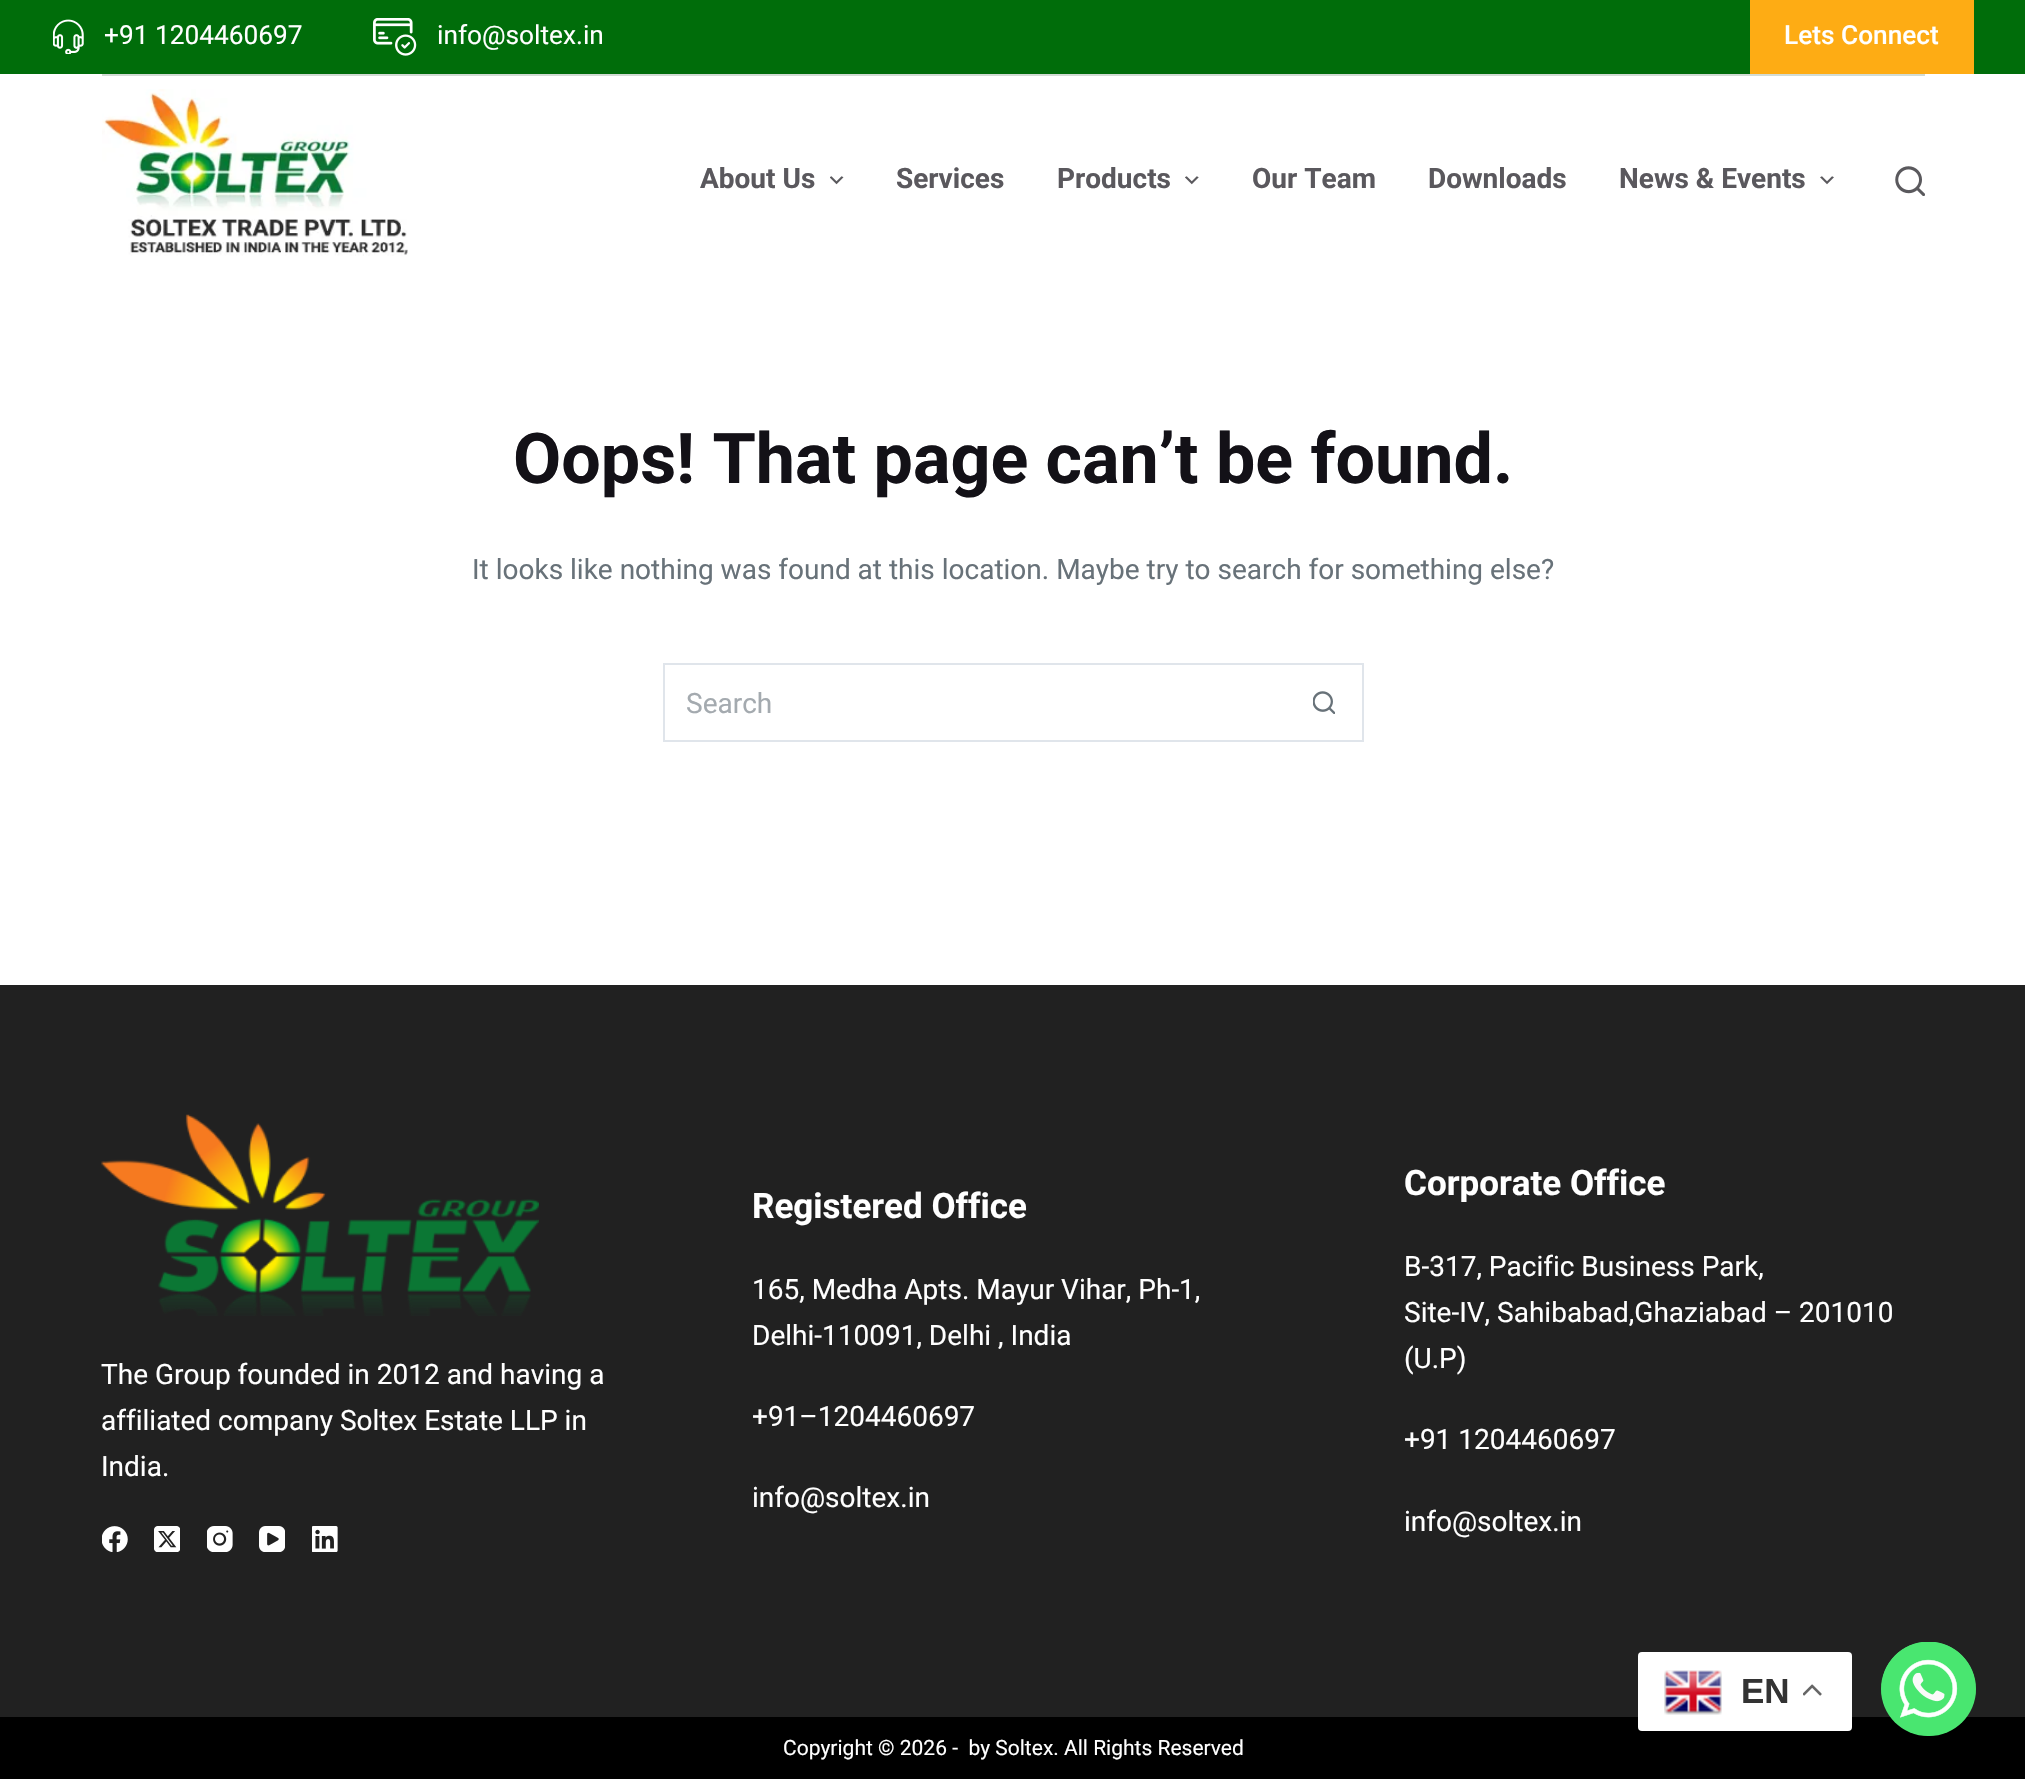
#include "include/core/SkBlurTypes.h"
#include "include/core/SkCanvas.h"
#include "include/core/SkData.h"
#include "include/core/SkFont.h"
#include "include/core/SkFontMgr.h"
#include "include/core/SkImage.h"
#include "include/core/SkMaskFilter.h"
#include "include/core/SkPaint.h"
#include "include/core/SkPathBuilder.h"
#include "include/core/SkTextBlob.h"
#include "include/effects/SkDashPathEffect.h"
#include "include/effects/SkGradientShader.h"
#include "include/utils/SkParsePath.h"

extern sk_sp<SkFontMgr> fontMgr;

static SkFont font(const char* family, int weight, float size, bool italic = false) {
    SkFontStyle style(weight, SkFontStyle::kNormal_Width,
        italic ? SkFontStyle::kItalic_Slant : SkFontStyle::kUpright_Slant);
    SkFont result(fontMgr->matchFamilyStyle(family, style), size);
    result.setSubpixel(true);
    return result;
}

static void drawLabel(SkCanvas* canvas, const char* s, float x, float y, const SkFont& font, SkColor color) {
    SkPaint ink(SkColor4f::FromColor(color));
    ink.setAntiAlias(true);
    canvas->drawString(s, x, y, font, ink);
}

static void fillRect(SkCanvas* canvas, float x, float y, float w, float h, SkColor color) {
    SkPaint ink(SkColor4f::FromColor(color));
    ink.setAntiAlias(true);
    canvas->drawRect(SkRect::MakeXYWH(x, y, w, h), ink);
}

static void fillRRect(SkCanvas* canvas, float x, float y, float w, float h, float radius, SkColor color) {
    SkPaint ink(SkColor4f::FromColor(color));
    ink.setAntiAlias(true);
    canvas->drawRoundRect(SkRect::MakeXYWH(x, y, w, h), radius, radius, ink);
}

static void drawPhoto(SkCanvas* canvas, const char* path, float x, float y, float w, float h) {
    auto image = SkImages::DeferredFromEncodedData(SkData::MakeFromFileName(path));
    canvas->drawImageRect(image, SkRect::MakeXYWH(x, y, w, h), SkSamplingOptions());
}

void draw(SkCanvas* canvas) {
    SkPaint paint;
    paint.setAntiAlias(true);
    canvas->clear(0xFFFFFFFF);
    fillRect(canvas, 0, 0, 2025, 74, 0xFF006D0A);
    drawPhoto(canvas, "assets/img1.png", 53, 19, 31, 35);
    SkFont font1 = font("Roboto", 400, 26.25f);
    drawLabel(canvas, "+91 1204460697", 104, 44, font1, 0xFFFFFFFF);
    drawPhoto(canvas, "assets/img2.png", 373, 18, 44, 38);
    drawLabel(canvas, "info@soltex.in", 437, 44, font1, 0xFFFFFFFF);
    fillRect(canvas, 1750, 0, 224, 74, 0xFFFEAC14);
    SkFont font2 = font("Roboto", 500, 26.25f);
    drawLabel(canvas, "Lets Connect", 1784, 44, font2, 0xFFFFFFFF);
    fillRect(canvas, 102, 74, 1823, 2, 0xFFD2DBD4);
    drawPhoto(canvas, "assets/img3.png", 102, 89, 306, 167);
    SkFont font3 = font("Roboto", 700, 28);
    drawLabel(canvas, "About Us", 700, 188, font3, 0xFF5A585D);
    drawPhoto(canvas, "assets/img4.png", 830, 176, 14, 9);
    drawLabel(canvas, "Services", 896, 188, font3, 0xFF5A585D);
    drawLabel(canvas, "Products", 1057, 188, font3, 0xFF5A585D);
    drawPhoto(canvas, "assets/img5.png", 1185, 176, 14, 9);
    drawLabel(canvas, "Our Team", 1252, 188, font3, 0xFF5A585D);
    drawLabel(canvas, "Downloads", 1428, 188, font3, 0xFF5A585D);
    drawLabel(canvas, "News & Events", 1619, 188, font3, 0xFF5A585D);
    drawPhoto(canvas, "assets/img6.png", 1820, 176, 14, 9);
    drawPhoto(canvas, "assets/img7.png", 1895, 166, 30, 30);
    SkFont font4 = font("Roboto", 700, 70);
    drawLabel(canvas, "Oops! That page can’t be found.", 513, 483, font4, 0xFF131117);
    SkFont font5 = font("Roboto", 400, 28);
    drawLabel(canvas, "It looks like nothing was found at this location. Maybe try to search for something else?", 472, 579, font5, 0xFF687279);
    fillRect(canvas, 663, 663, 700, 2, 0xFFE0E5EB);
    fillRect(canvas, 663, 740, 622, 2, 0xFFE0E5EB);
    fillRect(canvas, 663, 663, 2, 79, 0xFFE0E5EB);
    drawLabel(canvas, "Search", 686, 713, font5, 0xFFA4AAAF);
    fillRect(canvas, 1362, 663, 2, 79, 0xFFE0E5EB);
    fillRect(canvas, 1285, 740, 78, 2, 0xFFE0E5EB);
    drawPhoto(canvas, "assets/img8.png", 1313, 691, 22, 23);
    fillRect(canvas, 0, 985, 2025, 732, 0xFF212121);
    drawPhoto(canvas, "assets/img9.png", 101, 1114, 438, 202);
    drawLabel(canvas, "The Group founded in 2012 and having a", 101, 1384, font5, 0xFFFFFFFF);
    drawLabel(canvas, "affiliated company Soltex Estate LLP in", 101, 1430, font5, 0xFFFFFFFF);
    drawLabel(canvas, "India.", 101, 1476, font5, 0xFFFFFFFF);
    drawPhoto(canvas, "assets/img10.png", 102, 1526, 26, 26);
    drawPhoto(canvas, "assets/img11.png", 154, 1526, 26, 26);
    drawPhoto(canvas, "assets/img12.png", 207, 1526, 26, 26);
    drawPhoto(canvas, "assets/img13.png", 259, 1526, 26, 26);
    drawPhoto(canvas, "assets/img14.png", 312, 1526, 26, 26);
    SkFont font6 = font("Roboto", 700, 35);
    drawLabel(canvas, "Registered Office", 752, 1218, font6, 0xFFFFFFFF);
    drawLabel(canvas, "165, Medha Apts. Mayur Vihar, Ph-1,", 752, 1299, font5, 0xFFFFFFFF);
    drawLabel(canvas, "Delhi-110091, Delhi , India", 752, 1345, font5, 0xFFFFFFFF);
    drawLabel(canvas, "+91–1204460697", 752, 1426, font5, 0xFFFFFFFF);
    drawLabel(canvas, "info@soltex.in", 752, 1507, font5, 0xFFFFFFFF);
    drawLabel(canvas, "Corporate Office", 1404, 1195, font6, 0xFFFFFFFF);
    drawLabel(canvas, "B-317, Pacific Business Park,", 1404, 1276, font5, 0xFFFFFFFF);
    drawLabel(canvas, "Site-IV, Sahibabad,Ghaziabad – 201010", 1404, 1322, font5, 0xFFFFFFFF);
    drawLabel(canvas, "(U.P)", 1404, 1368, font5, 0xFFFFFFFF);
    drawLabel(canvas, "+91 1204460697", 1404, 1449, font5, 0xFFFFFFFF);
    drawLabel(canvas, "info@soltex.in", 1404, 1531, font5, 0xFFFFFFFF);
    fillRect(canvas, 0, 1717, 2025, 62, 0xFF000000);
    SkFont font7 = font("Roboto", 400, 21);
    drawLabel(canvas, "Copyright © 2026 -  by Soltex. All Rights Reserved", 783, 1755, font7, 0xFFFFFFFF);
    fillRRect(canvas, 1638, 1652, 214, 79, 4, 0xFFFFFFFF);
    drawPhoto(canvas, "assets/img15.png", 1664, 1670, 58, 45);
    SkFont font8 = font("Liberation Sans", 700, 35);
    drawLabel(canvas, "EN", 1741, 1703, font8, 0xFF333333);
    drawPhoto(canvas, "assets/img16.png", 1803, 1684, 19, 12);
    fillRRect(canvas, 1881, 1642, 95, 94, 47, 0xFF49E670);
    drawPhoto(canvas, "assets/img17.png", 1881, 1642, 95, 94);
}
